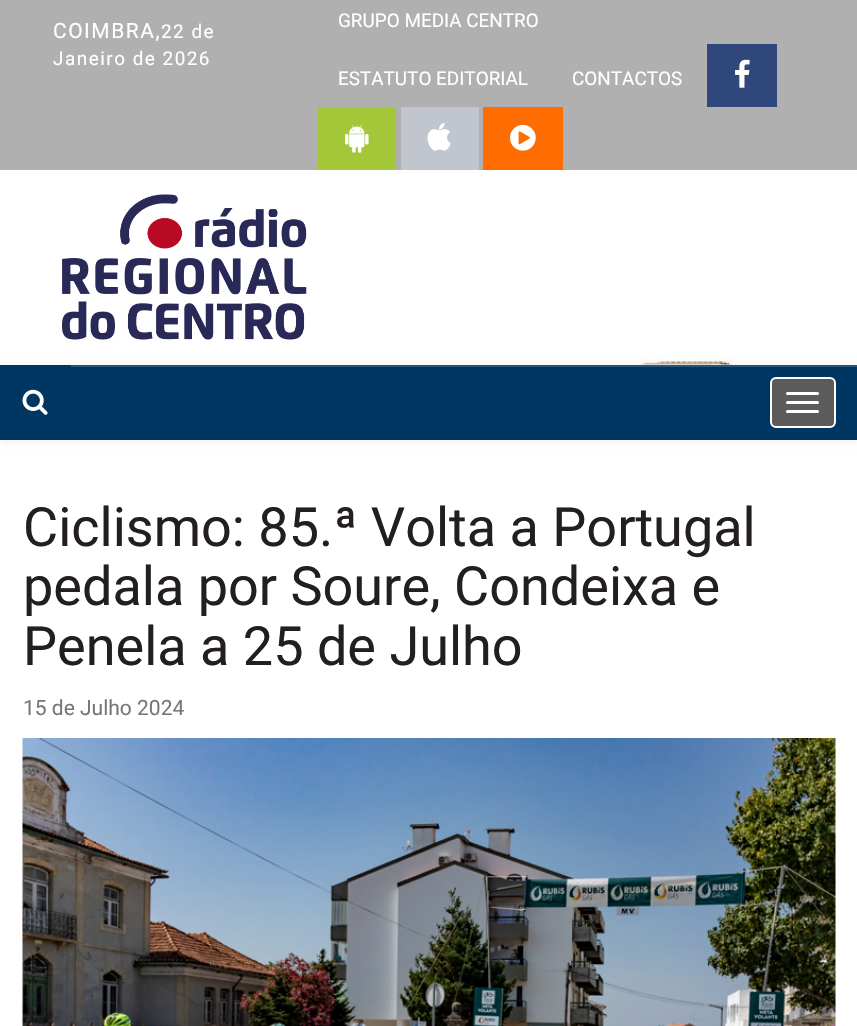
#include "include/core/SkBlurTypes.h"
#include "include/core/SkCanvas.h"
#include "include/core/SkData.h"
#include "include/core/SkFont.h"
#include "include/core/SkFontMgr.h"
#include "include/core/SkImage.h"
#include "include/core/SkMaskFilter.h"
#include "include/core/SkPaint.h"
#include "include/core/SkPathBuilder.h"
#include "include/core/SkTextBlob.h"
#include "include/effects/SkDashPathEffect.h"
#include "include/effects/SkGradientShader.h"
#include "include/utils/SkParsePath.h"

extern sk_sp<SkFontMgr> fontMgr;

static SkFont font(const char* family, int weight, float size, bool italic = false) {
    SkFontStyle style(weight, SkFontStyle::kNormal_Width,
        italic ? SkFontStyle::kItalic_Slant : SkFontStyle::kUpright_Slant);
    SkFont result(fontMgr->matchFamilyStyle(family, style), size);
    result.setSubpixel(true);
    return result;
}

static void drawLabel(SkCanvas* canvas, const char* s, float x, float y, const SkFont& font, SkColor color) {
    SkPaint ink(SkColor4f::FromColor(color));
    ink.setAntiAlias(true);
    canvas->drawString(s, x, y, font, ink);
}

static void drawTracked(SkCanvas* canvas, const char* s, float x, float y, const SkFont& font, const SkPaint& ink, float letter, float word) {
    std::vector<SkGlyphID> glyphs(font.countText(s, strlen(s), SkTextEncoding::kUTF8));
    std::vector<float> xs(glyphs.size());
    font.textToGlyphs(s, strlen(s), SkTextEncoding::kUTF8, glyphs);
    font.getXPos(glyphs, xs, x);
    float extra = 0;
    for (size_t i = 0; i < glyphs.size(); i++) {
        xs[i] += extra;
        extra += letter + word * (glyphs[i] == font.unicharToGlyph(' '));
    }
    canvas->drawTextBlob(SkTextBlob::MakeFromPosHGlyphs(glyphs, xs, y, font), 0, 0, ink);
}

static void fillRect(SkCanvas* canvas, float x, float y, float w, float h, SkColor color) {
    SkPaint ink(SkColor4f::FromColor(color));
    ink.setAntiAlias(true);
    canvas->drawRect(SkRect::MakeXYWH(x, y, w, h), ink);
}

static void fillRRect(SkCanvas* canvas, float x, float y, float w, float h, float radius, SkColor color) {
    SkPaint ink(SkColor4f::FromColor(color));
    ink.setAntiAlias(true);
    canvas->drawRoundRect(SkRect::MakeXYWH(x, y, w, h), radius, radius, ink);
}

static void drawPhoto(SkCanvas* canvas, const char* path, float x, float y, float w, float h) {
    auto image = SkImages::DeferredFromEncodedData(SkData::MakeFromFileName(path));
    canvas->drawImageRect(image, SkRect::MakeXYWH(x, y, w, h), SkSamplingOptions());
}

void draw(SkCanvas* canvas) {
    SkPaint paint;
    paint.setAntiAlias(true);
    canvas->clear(0xFFFFFFFF);
    fillRect(canvas, 0, 0, 857, 170, 0xFFB0B0B0);
    SkFont font1 = font("Roboto", 400, 21);
    paint.setColor(0xFFFFFFFF);
    drawTracked(canvas, "COIMBRA,", 53, 38, font1, paint, 1.5f, 0);
    SkFont font2 = font("Roboto", 400, 18.9f);
    drawTracked(canvas, "22 de", 161, 38, font2, paint, 1.5f, 0);
    drawTracked(canvas, "Janeiro de 2026", 53, 65, font2, paint, 1.5f, 0);
    drawLabel(canvas, "GRUPO MEDIA CENTRO", 338, 27, font2, 0xFFFFFFFF);
    drawLabel(canvas, "ESTATUTO EDITORIAL", 338, 85, font2, 0xFFFFFFFF);
    drawLabel(canvas, "CONTACTOS", 572, 85, font2, 0xFFFFFFFF);
    fillRect(canvas, 707, 44, 70, 63, 0xFF2F477A);
    drawPhoto(canvas, "assets/img1.png", 735, 59, 15, 29);
    fillRect(canvas, 318, 107, 78, 63, 0xFFA4C639);
    drawPhoto(canvas, "assets/img2.png", 345, 125, 24, 28);
    fillRect(canvas, 401, 107, 78, 63, 0xFFC0C5CE);
    drawPhoto(canvas, "assets/img3.png", 427, 122, 24, 29);
    fillRect(canvas, 483, 107, 80, 63, 0xFFFF6D02);
    drawPhoto(canvas, "assets/img4.png", 510, 124, 26, 27);
    drawPhoto(canvas, "assets/img5.png", 62, 194, 245, 146);
    drawPhoto(canvas, "assets/img6.png", 640, 357, 93, 8);
    paint.setColor(0x12000000);
    paint.setMaskFilter(SkMaskFilter::MakeBlur(kNormal_SkBlurStyle, 4));
    canvas->drawRect(SkRect::MakeXYWH(0, 366, 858, 75), paint);
    paint.setMaskFilter(nullptr);
    fillRect(canvas, 71, 367, 786, 73, 0xFF003762);
    fillRect(canvas, 71, 365, 786, 2, 0xFF26557A);
    fillRect(canvas, 0, 365, 71, 75, 0xFF003762);
    drawPhoto(canvas, "assets/img7.png", 22, 389, 26, 26);
    paint.setColor(0xFF5B5B5B);
    canvas->drawRoundRect(SkRect::MakeXYWH(771, 378, 64, 49), 5, 5, paint);
    paint.setStroke(true);
    paint.setStrokeWidth(2);
    paint.setColor(0xFFFFFFFF);
    canvas->drawRoundRect(SkRect::MakeXYWH(771, 378, 64, 49), 5, 5, paint);
    fillRRect(canvas, 786, 392, 33, 3, 1.5f, 0xFFFFFFFF);
    fillRRect(canvas, 786, 401, 33, 3, 1.5f, 0xFFFFFFFF);
    fillRRect(canvas, 786, 410, 33, 3, 1.5f, 0xFFFFFFFF);
    SkFont font3 = font("Roboto", 400, 54);
    drawLabel(canvas, "Ciclismo: 85.ª Volta a Portugal", 23, 546, font3, 0xFF231F21);
    drawLabel(canvas, "pedala por Soure, Condeixa e", 23, 605, font3, 0xFF231F21);
    drawLabel(canvas, "Penela a 25 de Julho", 23, 665, font3, 0xFF231F21);
    drawLabel(canvas, "15 de Julho 2024", 23, 715, font1, 0xFF777777);
    drawPhoto(canvas, "assets/img8.png", 22, 738, 814, 288);
}
